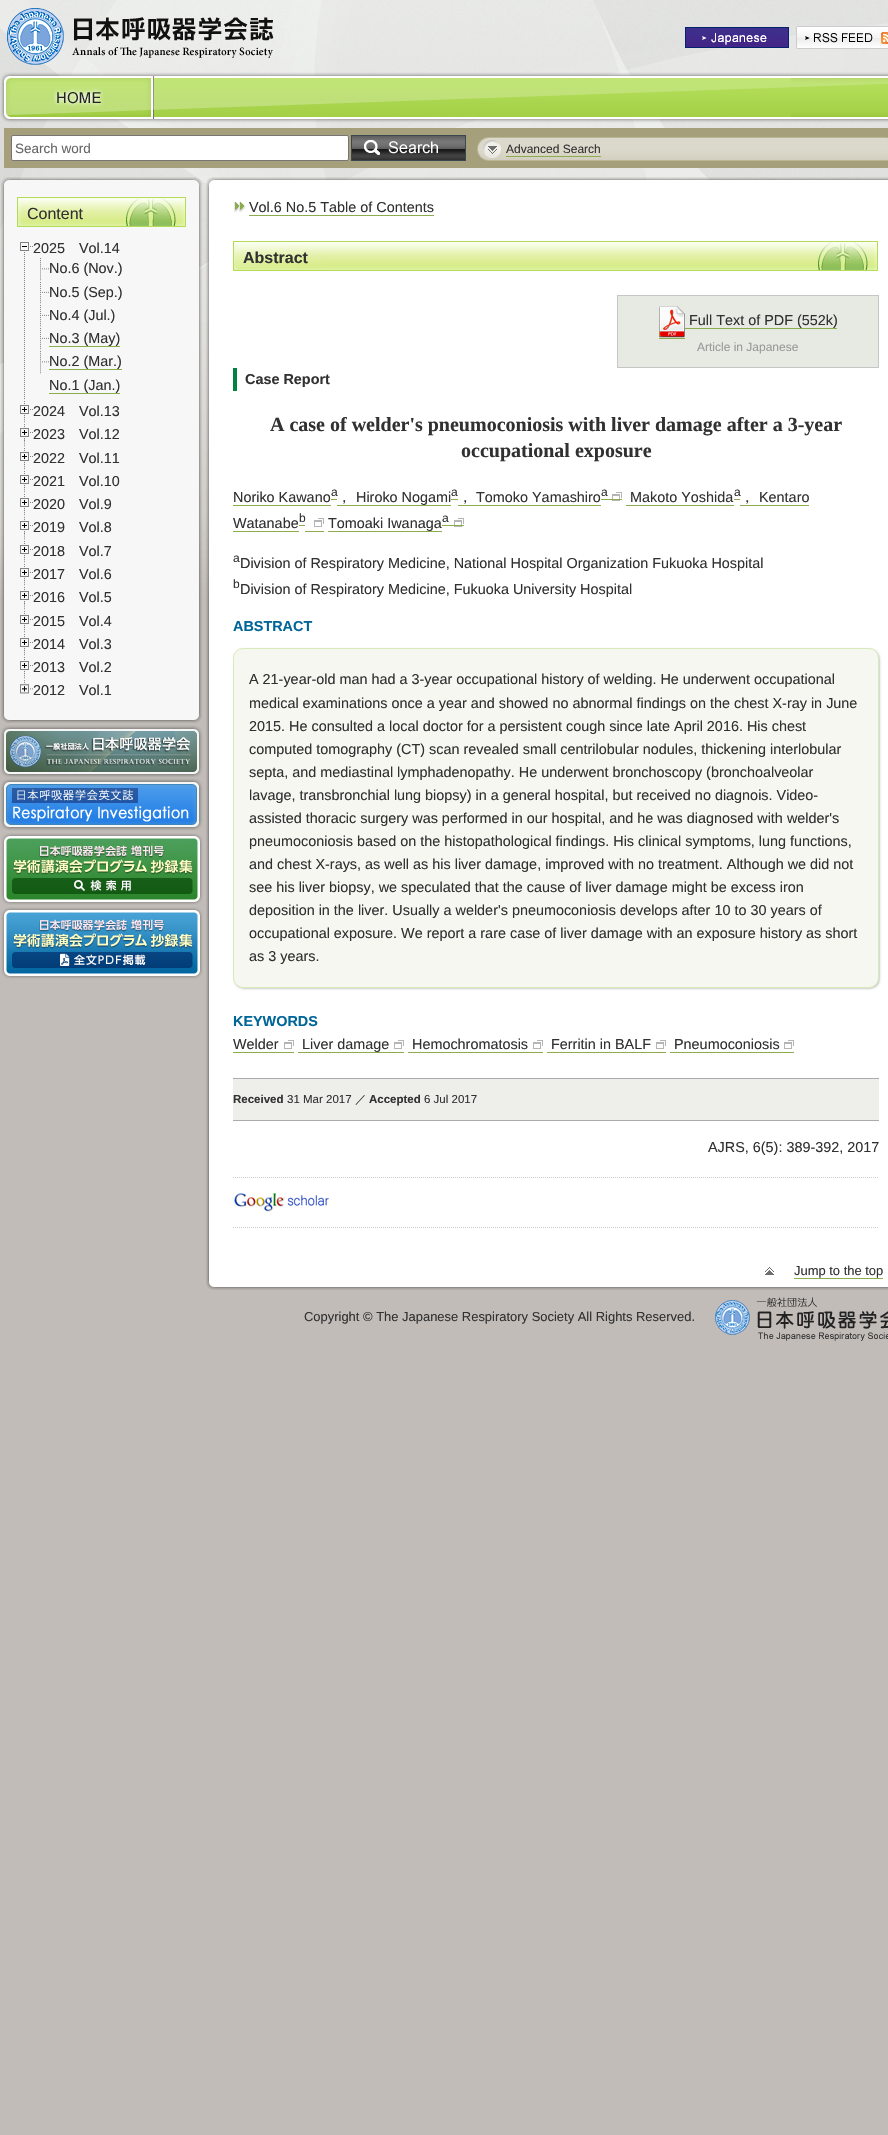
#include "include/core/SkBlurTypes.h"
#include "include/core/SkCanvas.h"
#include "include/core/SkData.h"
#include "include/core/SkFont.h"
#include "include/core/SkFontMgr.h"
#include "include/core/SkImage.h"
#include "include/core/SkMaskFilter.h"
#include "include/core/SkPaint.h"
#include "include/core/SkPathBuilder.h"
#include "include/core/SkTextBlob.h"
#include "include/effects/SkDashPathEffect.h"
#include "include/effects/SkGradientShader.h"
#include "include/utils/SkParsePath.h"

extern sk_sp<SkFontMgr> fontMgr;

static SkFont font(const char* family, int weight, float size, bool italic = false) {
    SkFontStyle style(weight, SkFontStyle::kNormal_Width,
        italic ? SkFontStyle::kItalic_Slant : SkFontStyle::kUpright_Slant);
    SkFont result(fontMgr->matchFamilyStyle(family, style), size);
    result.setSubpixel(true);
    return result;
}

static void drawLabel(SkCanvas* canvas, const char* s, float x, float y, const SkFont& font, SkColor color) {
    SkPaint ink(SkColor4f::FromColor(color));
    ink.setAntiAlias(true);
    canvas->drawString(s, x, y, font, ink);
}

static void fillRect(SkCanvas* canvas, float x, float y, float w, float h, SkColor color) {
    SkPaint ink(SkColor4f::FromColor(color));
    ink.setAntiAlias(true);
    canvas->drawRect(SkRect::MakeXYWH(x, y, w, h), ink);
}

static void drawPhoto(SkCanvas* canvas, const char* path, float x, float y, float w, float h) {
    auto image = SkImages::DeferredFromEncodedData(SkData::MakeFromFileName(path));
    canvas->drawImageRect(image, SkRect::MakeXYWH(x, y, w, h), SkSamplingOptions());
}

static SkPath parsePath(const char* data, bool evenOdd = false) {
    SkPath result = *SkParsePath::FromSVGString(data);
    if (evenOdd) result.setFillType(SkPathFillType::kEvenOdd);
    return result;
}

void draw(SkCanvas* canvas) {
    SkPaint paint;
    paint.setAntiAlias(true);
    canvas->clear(0xFFC1BCB8);
    drawPhoto(canvas, "assets/img1.png", 0, 0, 888, 600);
    drawPhoto(canvas, "assets/img2.png", 7, 8, 267, 57);
    drawPhoto(canvas, "assets/img3.png", 685, 27, 104, 21);
    drawPhoto(canvas, "assets/img4.png", 796, 26, 92, 23);
    drawPhoto(canvas, "assets/img5.png", 154, 72, 734, 51);
    drawPhoto(canvas, "assets/img6.png", 0, 72, 154, 51);
    paint.setStroke(true);
    paint.setStrokeWidth(7);
    paint.setColor(0xFFA69F7C);
    canvas->drawRect(SkRect::MakeXYWH(7.5f, 131.5f, 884, 33), paint);
    fillRect(canvas, 11, 135, 877, 26, 0xFFA69F7C);
    paint.setStroke(false);
    paint.setColor(0xFFFFFFFF);
    canvas->drawRoundRect(SkRect::MakeXYWH(11.5f, 135.5f, 337, 25), 1.5f, 1.5f, paint);
    paint.setStroke(true);
    paint.setStrokeWidth(1);
    paint.setColor(0xFF767676);
    canvas->drawRoundRect(SkRect::MakeXYWH(11.5f, 135.5f, 337, 25), 1.5f, 1.5f, paint);
    SkFont font1 = font("Liberation Sans", 400, 13.5f);
    drawLabel(canvas, "Search word", 15, 153, font1, 0xFF666666);
    drawPhoto(canvas, "assets/img7.png", 351, 135, 115, 26);
    drawPhoto(canvas, "assets/img8.png", 477, 137, 411, 24);
    SkFont font2 = font("Liberation Sans", 400, 12);
    drawLabel(canvas, "Advanced Search", 506, 153, font2, 0xFF313131);
    fillRect(canvas, 506, 156, 95, 1, 0xFF8BAD4D);
    drawPhoto(canvas, "assets/img9.png", 1, 177, 201, 10);
    drawPhoto(canvas, "assets/img10.png", 1, 187, 201, 526);
    drawPhoto(canvas, "assets/img11.png", 17, 197, 169, 30);
    SkFont font3 = font("Liberation Sans", 400, 16);
    drawLabel(canvas, "Content", 27, 219, font3, 0xFF313131);
    drawPhoto(canvas, "assets/img12.png", 24, 253, 1, 147);
    drawPhoto(canvas, "assets/img13.png", 20, 242, 13, 13);
    SkFont font4 = font("Liberation Sans", 400, 14.4f);
    drawLabel(canvas, "2025", 33, 253, font4, 0xFF313131);
    drawLabel(canvas, "Vol.14", 79, 253, font4, 0xFF313131);
    drawPhoto(canvas, "assets/img14.png", 40, 258, 9, 23);
    drawLabel(canvas, "No.6 (Nov.)", 49, 273, font4, 0xFF313131);
    drawPhoto(canvas, "assets/img15.png", 40, 282, 9, 22);
    drawLabel(canvas, "No.5 (Sep.)", 49, 297, font4, 0xFF313131);
    drawPhoto(canvas, "assets/img15.png", 40, 305, 9, 22);
    drawLabel(canvas, "No.4 (Jul.)", 49, 320, font4, 0xFF313131);
    drawPhoto(canvas, "assets/img15.png", 40, 328, 9, 22);
    drawLabel(canvas, "No.3 (May)", 49, 343, font4, 0xFF313131);
    fillRect(canvas, 49, 346, 71, 1, 0xFF8BAD4D);
    drawPhoto(canvas, "assets/img14.png", 40, 351, 9, 23);
    drawLabel(canvas, "No.2 (Mar.)", 49, 366, font4, 0xFF313131);
    fillRect(canvas, 49, 369, 73, 1, 0xFF8BAD4D);
    drawLabel(canvas, "No.1 (Jan.)", 49, 390, font4, 0xFF313131);
    fillRect(canvas, 49, 393, 71, 1, 0xFF8BAD4D);
    drawPhoto(canvas, "assets/img16.png", 24, 401, 1, 22);
    drawPhoto(canvas, "assets/img17.png", 20, 405, 13, 13);
    drawLabel(canvas, "2024", 33, 416, font4, 0xFF313131);
    drawLabel(canvas, "Vol.13", 79, 416, font4, 0xFF313131);
    drawPhoto(canvas, "assets/img18.png", 24, 424, 1, 23);
    drawPhoto(canvas, "assets/img19.png", 20, 428, 13, 13);
    drawLabel(canvas, "2023", 33, 439, font4, 0xFF313131);
    drawLabel(canvas, "Vol.12", 79, 439, font4, 0xFF313131);
    drawPhoto(canvas, "assets/img16.png", 24, 448, 1, 22);
    drawPhoto(canvas, "assets/img17.png", 20, 452, 13, 13);
    drawLabel(canvas, "2022", 33, 463, font4, 0xFF313131);
    drawLabel(canvas, "Vol.11", 79, 463, font4, 0xFF313131);
    drawPhoto(canvas, "assets/img16.png", 24, 471, 1, 22);
    drawPhoto(canvas, "assets/img17.png", 20, 475, 13, 13);
    drawLabel(canvas, "2021", 33, 486, font4, 0xFF313131);
    drawLabel(canvas, "Vol.10", 79, 486, font4, 0xFF313131);
    drawPhoto(canvas, "assets/img16.png", 24, 494, 1, 22);
    drawPhoto(canvas, "assets/img17.png", 20, 498, 13, 13);
    drawLabel(canvas, "2020", 33, 509, font4, 0xFF313131);
    drawLabel(canvas, "Vol.9", 79, 509, font4, 0xFF313131);
    drawPhoto(canvas, "assets/img18.png", 24, 517, 1, 23);
    drawPhoto(canvas, "assets/img19.png", 20, 521, 13, 13);
    drawLabel(canvas, "2019", 33, 532, font4, 0xFF313131);
    drawLabel(canvas, "Vol.8", 79, 532, font4, 0xFF313131);
    drawPhoto(canvas, "assets/img16.png", 24, 541, 1, 22);
    drawPhoto(canvas, "assets/img17.png", 20, 545, 13, 13);
    drawLabel(canvas, "2018", 33, 556, font4, 0xFF313131);
    drawLabel(canvas, "Vol.7", 79, 556, font4, 0xFF313131);
    drawPhoto(canvas, "assets/img16.png", 24, 564, 1, 22);
    drawPhoto(canvas, "assets/img17.png", 20, 568, 13, 13);
    drawLabel(canvas, "2017", 33, 579, font4, 0xFF313131);
    drawLabel(canvas, "Vol.6", 79, 579, font4, 0xFF313131);
    drawPhoto(canvas, "assets/img18.png", 24, 587, 1, 23);
    drawPhoto(canvas, "assets/img19.png", 20, 591, 13, 13);
    drawLabel(canvas, "2016", 33, 602, font4, 0xFF313131);
    drawLabel(canvas, "Vol.5", 79, 602, font4, 0xFF313131);
    drawPhoto(canvas, "assets/img16.png", 24, 611, 1, 22);
    drawPhoto(canvas, "assets/img17.png", 20, 615, 13, 13);
    drawLabel(canvas, "2015", 33, 626, font4, 0xFF313131);
    drawLabel(canvas, "Vol.4", 79, 626, font4, 0xFF313131);
    drawPhoto(canvas, "assets/img16.png", 24, 634, 1, 22);
    drawPhoto(canvas, "assets/img17.png", 20, 638, 13, 13);
    drawLabel(canvas, "2014", 33, 649, font4, 0xFF313131);
    drawLabel(canvas, "Vol.3", 79, 649, font4, 0xFF313131);
    drawPhoto(canvas, "assets/img16.png", 24, 657, 1, 22);
    drawPhoto(canvas, "assets/img17.png", 20, 661, 13, 13);
    drawLabel(canvas, "2013", 33, 672, font4, 0xFF313131);
    drawLabel(canvas, "Vol.2", 79, 672, font4, 0xFF313131);
    drawPhoto(canvas, "assets/img20.png", 20, 680, 13, 14);
    drawLabel(canvas, "2012", 33, 695, font4, 0xFF313131);
    drawLabel(canvas, "Vol.1", 79, 695, font4, 0xFF313131);
    drawPhoto(canvas, "assets/img21.png", 1, 713, 201, 10);
    drawPhoto(canvas, "assets/img22.png", 0, 725, 203, 53);
    drawPhoto(canvas, "assets/img23.png", 0, 778, 203, 53);
    drawPhoto(canvas, "assets/img24.png", 1, 833, 202, 72);
    drawPhoto(canvas, "assets/img25.png", 1, 907, 202, 72);
    drawPhoto(canvas, "assets/img26.png", 206, 177, 682, 10);
    drawPhoto(canvas, "assets/img27.png", 206, 187, 682, 1094);
    drawPhoto(canvas, "assets/img28.png", 234, 202, 11, 10);
    drawLabel(canvas, "Vol.6 No.5 Table of Contents", 249, 212, font4, 0xFF313131);
    fillRect(canvas, 249, 215, 185, 1, 0xFF8BAD4D);
    drawPhoto(canvas, "assets/img29.png", 233, 241, 645, 30);
    SkFont font5 = font("Liberation Sans", 700, 16);
    drawLabel(canvas, "Abstract", 243, 263, font5, 0xFF313131);
    paint.setStroke(false);
    paint.setColor(0xFFE6EAE3);
    canvas->drawRect(SkRect::MakeXYWH(617.5f, 295.5f, 261, 72), paint);
    paint.setStroke(true);
    paint.setColor(0xFFC6C6C6);
    canvas->drawRect(SkRect::MakeXYWH(617.5f, 295.5f, 261, 72), paint);
    drawPhoto(canvas, "assets/img30.png", 659, 306, 26, 32);
    drawLabel(canvas, "Full Text of PDF (552k)", 689, 325, font4, 0xFF313131);
    fillRect(canvas, 659, 338, 26, 1, 0xFF8BAD4D);
    fillRect(canvas, 685, 328, 152, 1, 0xFF8BAD4D);
    drawLabel(canvas, "Article in Japanese", 697, 351, font2, 0xFF999999);
    fillRect(canvas, 233, 368, 4, 23, 0xFF00833E);
    SkFont font6 = font("Liberation Sans", 700, 14.4f);
    drawLabel(canvas, "Case Report", 245, 384, font6, 0xFF313131);
    SkFont font7 = font("Liberation Serif", 700, 20);
    drawLabel(canvas, "A case of welder's pneumoconiosis with liver damage after a 3-year", 270, 431, font7, 0xFF313131);
    drawLabel(canvas, "occupational exposure", 461, 457, font7, 0xFF313131);
    drawLabel(canvas, "Noriko Kawano", 233, 502, font4, 0xFF313131);
    fillRect(canvas, 233, 505, 98, 1, 0xFF8BAD4D);
    fillRect(canvas, 331, 499, 6, 1, 0xFF8BAD4D);
    drawLabel(canvas, "a", 331, 496, font2, 0xFF313131);
    SkFont font8 = font("WenQuanYi Zen Hei", 500, 14.4f);
    drawLabel(canvas, "，", 337, 502, font8, 0xFF313131);
    fillRect(canvas, 337, 505, 114, 1, 0xFF8BAD4D);
    drawLabel(canvas, "Hiroko Nogami", 356, 502, font4, 0xFF313131);
    fillRect(canvas, 451, 499, 7, 1, 0xFF8BAD4D);
    drawLabel(canvas, "a", 451, 496, font2, 0xFF313131);
    drawLabel(canvas, "，", 458, 502, font8, 0xFF313131);
    fillRect(canvas, 458, 505, 143, 1, 0xFF8BAD4D);
    drawLabel(canvas, "Tomoko Yamashiro", 476, 502, font4, 0xFF313131);
    drawPhoto(canvas, "assets/img31.png", 612, 492, 10, 9);
    fillRect(canvas, 601, 499, 21, 1, 0xFF8BAD4D);
    drawLabel(canvas, "a", 601, 496, font2, 0xFF313131);
    drawLabel(canvas, "Makoto Yoshida", 630, 502, font4, 0xFF313131);
    fillRect(canvas, 626, 505, 108, 1, 0xFF8BAD4D);
    fillRect(canvas, 734, 499, 6, 1, 0xFF8BAD4D);
    drawLabel(canvas, "a", 734, 496, font2, 0xFF313131);
    drawLabel(canvas, "，", 740, 502, font8, 0xFF313131);
    fillRect(canvas, 740, 505, 69, 1, 0xFF8BAD4D);
    drawLabel(canvas, "Kentaro", 759, 502, font4, 0xFF313131);
    drawLabel(canvas, "Watanabe", 233, 528, font4, 0xFF313131);
    fillRect(canvas, 233, 531, 66, 1, 0xFF8BAD4D);
    fillRect(canvas, 299, 525, 6, 1, 0xFF8BAD4D);
    fillRect(canvas, 305, 531, 19, 1, 0xFF8BAD4D);
    drawLabel(canvas, "b", 299, 522, font2, 0xFF313131);
    drawPhoto(canvas, "assets/img31.png", 314, 518, 10, 9);
    drawLabel(canvas, "Tomoaki Iwanaga", 328, 528, font4, 0xFF313131);
    fillRect(canvas, 328, 531, 114, 1, 0xFF8BAD4D);
    drawPhoto(canvas, "assets/img31.png", 454, 518, 10, 9);
    fillRect(canvas, 442, 525, 22, 1, 0xFF8BAD4D);
    drawLabel(canvas, "a", 442, 522, font2, 0xFF313131);
    drawLabel(canvas, "a", 233, 562, font2, 0xFF313131);
    drawLabel(canvas, "Division of Respiratory Medicine, National Hospital Organization Fukuoka Hospital", 240, 568, font4, 0xFF313131);
    drawLabel(canvas, "b", 233, 588, font2, 0xFF313131);
    drawLabel(canvas, "Division of Respiratory Medicine, Fukuoka University Hospital", 240, 594, font4, 0xFF313131);
    drawLabel(canvas, "ABSTRACT", 233, 631, font6, 0xFF006699);
    paint.setStroke(false);
    paint.setColor(0xFFCCCCCC);
    paint.setMaskFilter(SkMaskFilter::MakeBlur(kNormal_SkBlurStyle, 1));
    canvas->drawRoundRect(SkRect::MakeXYWH(234, 649, 646, 340), 10, 10, paint);
    paint.setMaskFilter(nullptr);
    paint.setColor(0xFFF5F7F0);
    canvas->drawRoundRect(SkRect::MakeXYWH(233.5f, 648.5f, 645, 339), 9.5f, 9.5f, paint);
    paint.setStroke(true);
    paint.setColor(0xFFD8EBBA);
    canvas->drawRoundRect(SkRect::MakeXYWH(233.5f, 648.5f, 645, 339), 9.5f, 9.5f, paint);
    drawLabel(canvas, "A 21-year-old man had a 3-year occupational history of welding. He underwent occupational", 249, 684, font4, 0xFF313131);
    drawLabel(canvas, "medical examinations once a year and showed no abnormal findings on the chest X-ray in June", 249, 708, font4, 0xFF313131);
    drawLabel(canvas, "2015. He consulted a local doctor for a persistent cough since late April 2016. His chest", 249, 731, font4, 0xFF313131);
    drawLabel(canvas, "computed tomography (CT) scan revealed small centrilobular nodules, thickening interlobular", 249, 754, font4, 0xFF313131);
    drawLabel(canvas, "septa, and mediastinal lymphadenopathy. He underwent bronchoscopy (bronchoalveolar", 249, 777, font4, 0xFF313131);
    drawLabel(canvas, "lavage, transbronchial lung biopsy) in a general hospital, but received no diagnois. Video-", 249, 800, font4, 0xFF313131);
    drawLabel(canvas, "assisted thoracic surgery was performed in our hospital, and he was diagnosed with welder's", 249, 823, font4, 0xFF313131);
    drawLabel(canvas, "pneumoconiosis based on the histopathological findings. His clinical symptoms, lung functions,", 249, 846, font4, 0xFF313131);
    drawLabel(canvas, "and chest X-rays, as well as his liver damage, improved with no treatment. Although we did not", 249, 869, font4, 0xFF313131);
    drawLabel(canvas, "see his liver biopsy, we speculated that the cause of liver damage might be excess iron", 249, 892, font4, 0xFF313131);
    drawLabel(canvas, "deposition in the liver. Usually a welder's pneumoconiosis develops after 10 to 30 years of", 249, 915, font4, 0xFF313131);
    drawLabel(canvas, "occupational exposure. We report a rare case of liver damage with an exposure history as short", 249, 938, font4, 0xFF313131);
    drawLabel(canvas, "as 3 years.", 249, 961, font4, 0xFF313131);
    drawLabel(canvas, "KEYWORDS", 233, 1026, font6, 0xFF006699);
    drawLabel(canvas, "Welder", 233, 1049, font4, 0xFF313131);
    fillRect(canvas, 233, 1052, 61, 1, 0xFF8BAD4D);
    drawPhoto(canvas, "assets/img31.png", 284, 1040, 10, 9);
    drawLabel(canvas, "Liver damage", 302, 1049, font4, 0xFF313131);
    fillRect(canvas, 298, 1052, 106, 1, 0xFF8BAD4D);
    drawPhoto(canvas, "assets/img31.png", 394, 1040, 10, 9);
    drawLabel(canvas, "Hemochromatosis", 412, 1049, font4, 0xFF313131);
    fillRect(canvas, 408, 1052, 135, 1, 0xFF8BAD4D);
    drawPhoto(canvas, "assets/img31.png", 533, 1040, 10, 9);
    drawLabel(canvas, "Ferritin in BALF", 551, 1049, font4, 0xFF313131);
    fillRect(canvas, 547, 1052, 119, 1, 0xFF8BAD4D);
    drawPhoto(canvas, "assets/img31.png", 656, 1040, 10, 9);
    drawLabel(canvas, "Pneumoconiosis", 674, 1049, font4, 0xFF313131);
    fillRect(canvas, 670, 1052, 124, 1, 0xFF8BAD4D);
    drawPhoto(canvas, "assets/img31.png", 784, 1040, 10, 9);
    fillRect(canvas, 233, 1079, 646, 41, 0xFFEEEEEB);
    fillRect(canvas, 233, 1078, 646, 1, 0xFFABABAC);
    fillRect(canvas, 233, 1120, 646, 1, 0xFFABABAC);
    SkFont font9 = font("Liberation Sans", 700, 11.5f);
    drawLabel(canvas, "Received", 233, 1103, font9, 0xFF313131);
    SkFont font10 = font("Liberation Sans", 400, 11.5f);
    drawLabel(canvas, "31 Mar 2017", 287, 1103, font10, 0xFF313131);
    SkFont font11 = font("WenQuanYi Zen Hei", 500, 11.5f);
    drawLabel(canvas, "／", 355, 1103, font11, 0xFF313131);
    drawLabel(canvas, "Accepted", 369, 1103, font9, 0xFF313131);
    drawLabel(canvas, "6 Jul 2017", 424, 1103, font10, 0xFF313131);
    drawLabel(canvas, "AJRS, 6(5): 389-392, 2017", 708, 1152, font4, 0xFF313131);
    paint.setColor(0xFFCCCCCC);
    paint.setPathEffect(SkDashPathEffect::Make({{1, 1}}, 0));
    canvas->drawPath(parsePath("M233 1177.5H879"), paint);
    paint.setPathEffect(nullptr);
    paint.setPathEffect(SkDashPathEffect::Make({{1, 1}}, 0));
    canvas->drawPath(parsePath("M233 1227.5H879"), paint);
    paint.setPathEffect(nullptr);
    drawPhoto(canvas, "assets/img32.png", 233, 1193, 119, 19);
    drawPhoto(canvas, "assets/img33.png", 765, 1267, 9, 8);
    SkFont font12 = font("Liberation Sans", 400, 12.95f);
    drawLabel(canvas, "Jump to the top", 794, 1275, font12, 0xFF313131);
    fillRect(canvas, 794, 1278, 89, 1, 0xFF8BAD4D);
    drawPhoto(canvas, "assets/img34.png", 206, 1281, 682, 9);
    drawLabel(canvas, "Copyright © The Japanese Respiratory Society All Rights Reserved.", 304, 1321, font12, 0xFF313131);
    drawPhoto(canvas, "assets/img35.png", 715, 1297, 173, 44);
}
